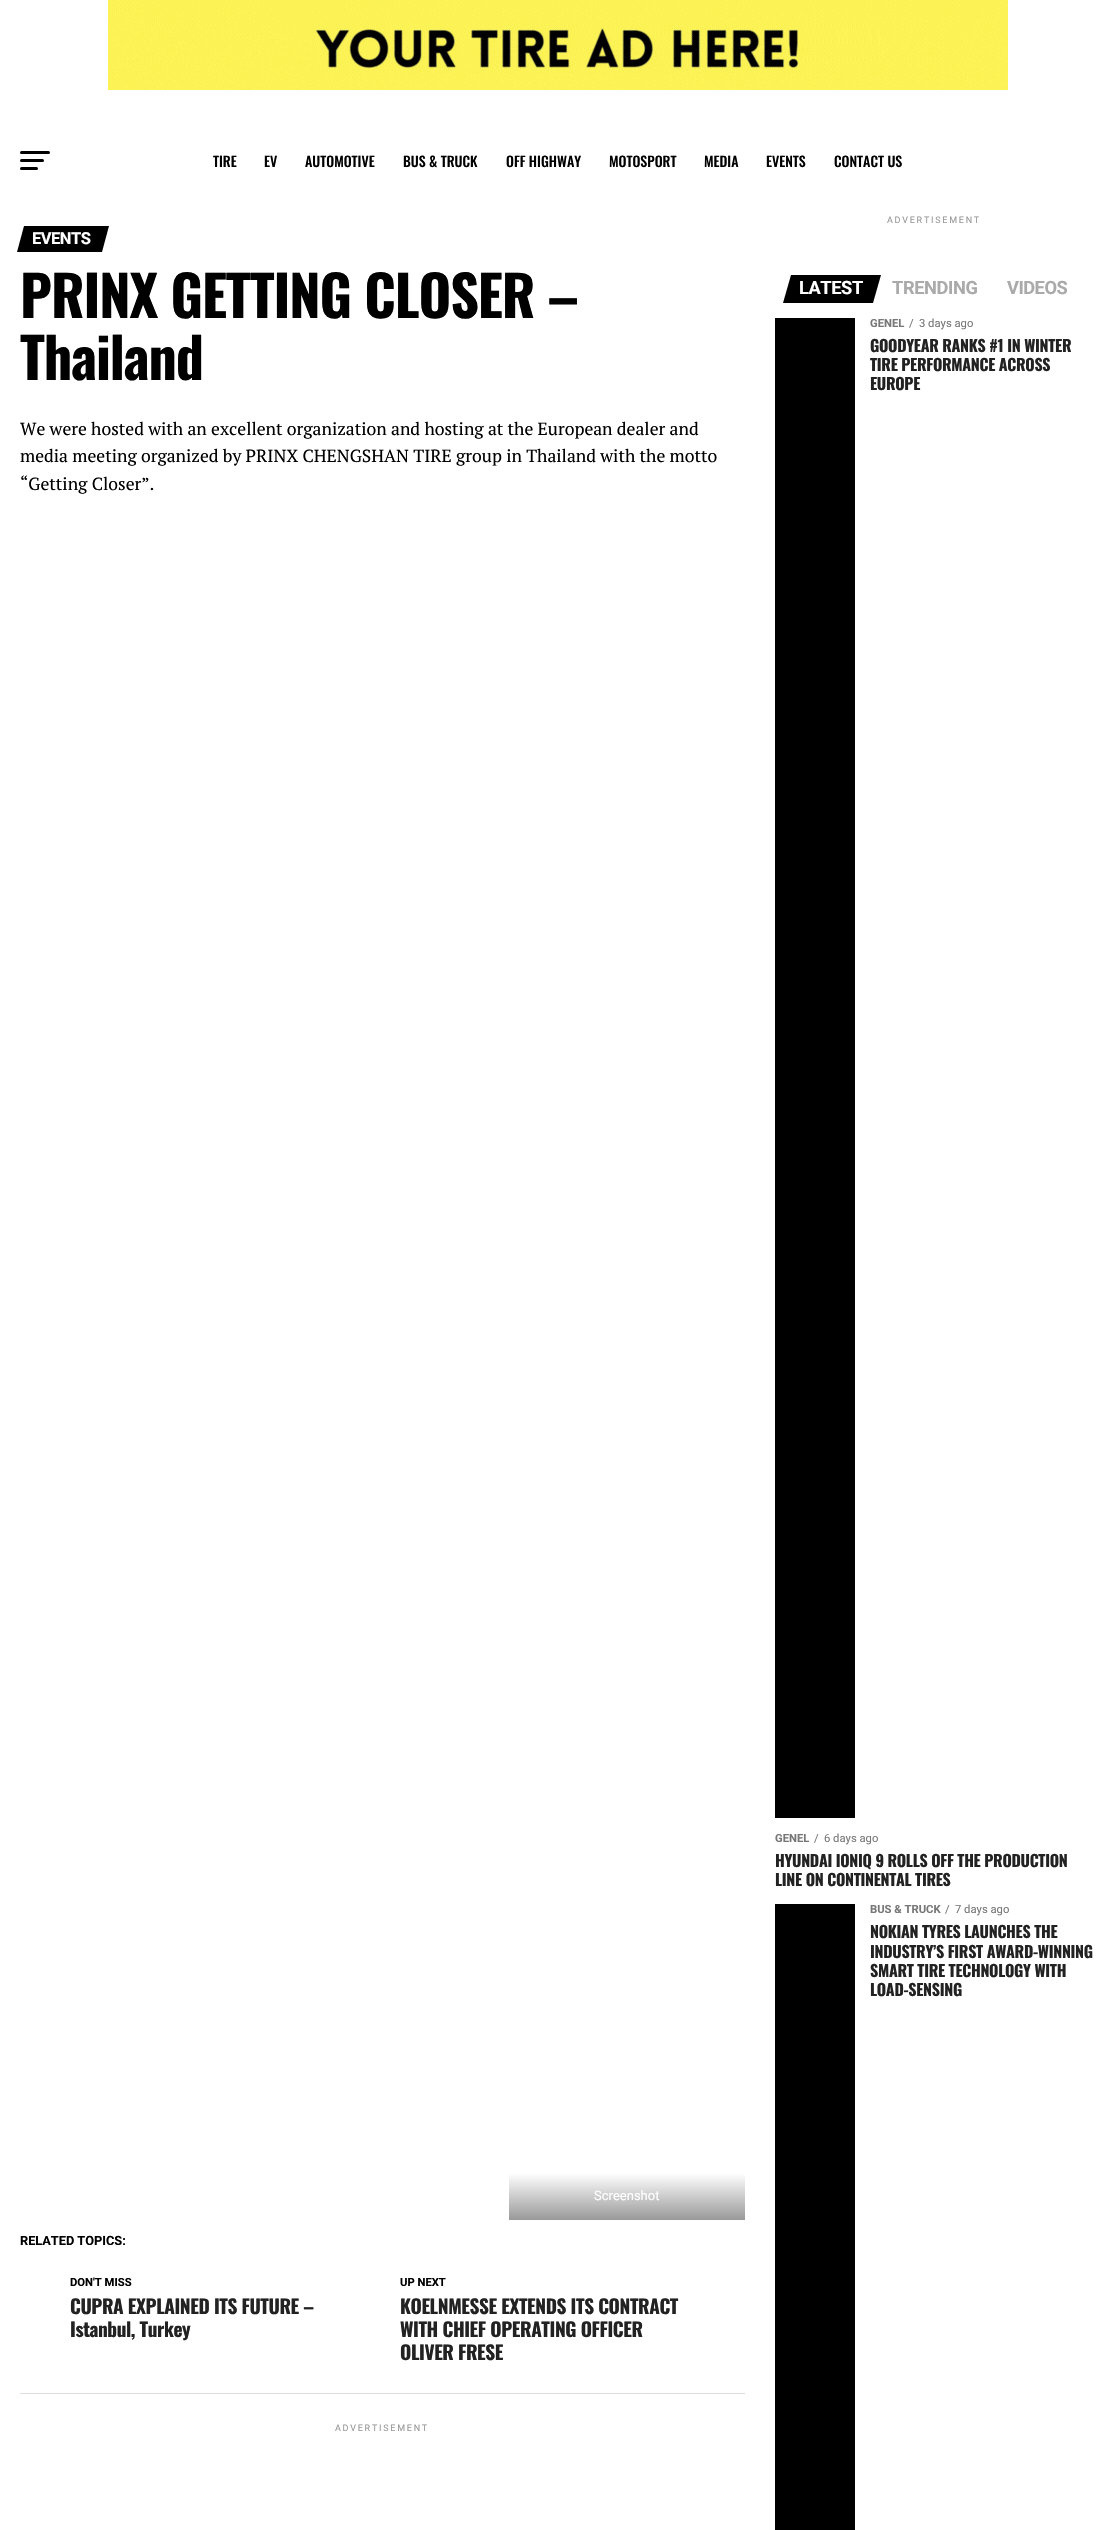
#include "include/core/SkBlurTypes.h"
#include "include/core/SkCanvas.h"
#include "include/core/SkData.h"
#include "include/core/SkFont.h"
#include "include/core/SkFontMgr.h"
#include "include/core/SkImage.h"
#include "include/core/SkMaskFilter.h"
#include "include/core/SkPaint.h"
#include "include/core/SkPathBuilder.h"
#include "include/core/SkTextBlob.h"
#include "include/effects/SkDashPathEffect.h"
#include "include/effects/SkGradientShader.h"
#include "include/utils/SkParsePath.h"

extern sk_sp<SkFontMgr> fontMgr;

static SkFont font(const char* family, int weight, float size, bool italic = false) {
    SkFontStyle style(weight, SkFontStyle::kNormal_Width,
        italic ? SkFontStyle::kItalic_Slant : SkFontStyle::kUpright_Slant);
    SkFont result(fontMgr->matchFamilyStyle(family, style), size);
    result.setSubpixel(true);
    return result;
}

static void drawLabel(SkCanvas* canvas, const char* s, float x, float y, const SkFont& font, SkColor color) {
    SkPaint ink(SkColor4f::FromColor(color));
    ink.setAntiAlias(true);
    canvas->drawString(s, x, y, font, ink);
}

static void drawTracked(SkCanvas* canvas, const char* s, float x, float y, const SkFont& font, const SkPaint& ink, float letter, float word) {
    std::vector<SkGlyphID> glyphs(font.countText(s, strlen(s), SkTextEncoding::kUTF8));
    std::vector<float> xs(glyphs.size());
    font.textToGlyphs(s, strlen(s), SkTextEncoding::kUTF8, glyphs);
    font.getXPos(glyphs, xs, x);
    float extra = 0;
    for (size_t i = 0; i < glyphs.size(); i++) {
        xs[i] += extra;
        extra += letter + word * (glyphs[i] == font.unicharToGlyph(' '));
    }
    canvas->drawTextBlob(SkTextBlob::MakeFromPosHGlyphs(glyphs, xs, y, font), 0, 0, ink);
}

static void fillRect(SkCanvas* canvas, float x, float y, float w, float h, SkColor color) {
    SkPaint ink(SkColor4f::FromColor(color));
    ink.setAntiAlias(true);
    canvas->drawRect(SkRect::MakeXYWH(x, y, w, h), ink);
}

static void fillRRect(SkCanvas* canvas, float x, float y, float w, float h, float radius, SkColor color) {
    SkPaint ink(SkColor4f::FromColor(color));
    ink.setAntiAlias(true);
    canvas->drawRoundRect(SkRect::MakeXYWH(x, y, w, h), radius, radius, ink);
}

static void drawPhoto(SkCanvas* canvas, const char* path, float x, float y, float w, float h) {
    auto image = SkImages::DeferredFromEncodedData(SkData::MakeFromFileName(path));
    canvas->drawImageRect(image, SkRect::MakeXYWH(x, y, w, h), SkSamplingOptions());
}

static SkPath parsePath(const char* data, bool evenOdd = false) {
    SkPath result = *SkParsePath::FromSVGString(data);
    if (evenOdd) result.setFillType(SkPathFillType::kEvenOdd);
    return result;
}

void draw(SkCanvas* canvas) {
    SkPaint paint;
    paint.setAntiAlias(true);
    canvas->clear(0xFFFFFFFF);
    drawPhoto(canvas, "assets/img1.png", 108, 0, 900, 90);
    fillRRect(canvas, 20, 151, 30, 3, 1.5f, 0xFF000000);
    fillRRect(canvas, 20, 159, 24, 3, 1.5f, 0xFF000000);
    fillRRect(canvas, 20, 167, 18, 3, 1.5f, 0xFF000000);
    SkFont font1 = font("Oswald", 500, 14);
    drawLabel(canvas, "TIRE", 213, 167, font1, 0xFF000000);
    drawLabel(canvas, "EV", 264, 167, font1, 0xFF000000);
    drawLabel(canvas, "AUTOMOTIVE", 305, 167, font1, 0xFF000000);
    drawLabel(canvas, "BUS & TRUCK", 403, 167, font1, 0xFF000000);
    drawLabel(canvas, "OFF HIGHWAY", 506, 167, font1, 0xFF000000);
    drawLabel(canvas, "MOTOSPORT", 609, 167, font1, 0xFF000000);
    drawLabel(canvas, "MEDIA", 704, 167, font1, 0xFF000000);
    drawLabel(canvas, "EVENTS", 766, 167, font1, 0xFF000000);
    drawLabel(canvas, "CONTACT US", 834, 167, font1, 0xFF000000);
    paint.setColor(0xFF000000);
    canvas->drawPath(parsePath("M24 226H109L102 252H17Z"), paint);
    SkFont font2 = font("Roboto", 700, 16.5f);
    paint.setColor(0xFFFFFFFF);
    drawTracked(canvas, "EVENTS", 32, 244, font2, paint, -0.5f, 0);
    SkFont font3 = font("Oswald", 700, 56);
    paint.setColor(0xFF000000);
    drawTracked(canvas, "PRINX GETTING CLOSER –", 20, 318, font3, paint, -1.1f, 0);
    drawTracked(canvas, "Thailand", 20, 380, font3, paint, -1.1f, 0);
    SkFont font4 = font("PT Serif", 400, 17.6f);
    drawLabel(canvas, "We were hosted with an excellent organization and hosting at the European dealer and", 20, 435, font4, 0xFF000000);
    drawLabel(canvas, "media meeting organized by PRINX CHENGSHAN TIRE group in Thailand with the motto", 20, 462, font4, 0xFF000000);
    drawLabel(canvas, "“Getting Closer”.", 20, 490, font4, 0xFF000000);
    {
        const SkColor colors[] = {0xFF999999, 0xFFFFFFFF};
        const float stops[] = {0, 1};
        const SkPoint ends[] = {{627, 2220}, {627, 2173}};
        paint.setShader(SkGradientShader::MakeLinear(ends, colors, stops, 2, SkTileMode::kClamp));
        paint.setAlpha(255);
    }
    canvas->drawRect(SkRect::MakeXYWH(509, 2174, 236, 46), paint);
    SkFont font5 = font("Roboto", 400, 13);
    drawLabel(canvas, "Screenshot", 594, 2200, font5, 0xFFFFFFFF);
    SkFont font6 = font("Roboto", 700, 12.75f);
    drawLabel(canvas, "RELATED TOPICS:", 20, 2245, font6, 0xFF000000);
    fillRect(canvas, 20, 2393, 725, 1, 0xFFDDDDDD);
    SkFont font7 = font("Roboto", 700, 11.25f);
    drawLabel(canvas, "DON'T MISS", 70, 2286, font7, 0xFF000000);
    SkFont font8 = font("Oswald", 700, 19.25f);
    paint.setShader(nullptr);
    paint.setColor(0xFF222222);
    drawTracked(canvas, "CUPRA EXPLAINED ITS FUTURE –", 70, 2314, font8, paint, -0.4f, 0);
    drawTracked(canvas, "Istanbul, Turkey", 70, 2337, font8, paint, -0.4f, 0);
    drawLabel(canvas, "UP NEXT", 400, 2286, font7, 0xFF000000);
    drawTracked(canvas, "KOELNMESSE EXTENDS ITS CONTRACT", 400, 2314, font8, paint, -0.4f, 0);
    drawTracked(canvas, "WITH CHIEF OPERATING OFFICER", 400, 2337, font8, paint, -0.4f, 0);
    drawTracked(canvas, "OLIVER FRESE", 400, 2360, font8, paint, -0.4f, 0);
    SkFont font9 = font("Roboto", 400, 9);
    paint.setColor(0xFF999999);
    drawTracked(canvas, "ADVERTISEMENT", 335, 2431, font9, paint, 1.75f, 0);
    drawTracked(canvas, "ADVERTISEMENT", 887, 223, font9, paint, 1.75f, 0);
    paint.setColor(0xFF000000);
    canvas->drawPath(parsePath("M791 275H881L873 303H783Z"), paint);
    SkFont font10 = font("Roboto", 700, 18.25f);
    paint.setColor(0xFFFFFFFF);
    drawTracked(canvas, "LATEST", 799, 294, font10, paint, -0.4f, 0);
    paint.setColor(0xFFAAAAAA);
    drawTracked(canvas, "TRENDING", 892, 294, font10, paint, -0.4f, 0);
    drawTracked(canvas, "VIDEOS", 1007, 294, font10, paint, -0.5f, 0);
    fillRect(canvas, 775, 318, 80, 1500, 0xFF000000);
    drawLabel(canvas, "GENEL", 870, 327, font7, 0xFF777777);
    SkFont font11 = font("Roboto", 400, 11.25f);
    drawLabel(canvas, "/", 909, 327, font11, 0xFF777777);
    drawLabel(canvas, "3 days ago", 919, 327, font11, 0xFF777777);
    SkFont font12 = font("Oswald", 700, 16);
    paint.setColor(0xFF222222);
    drawTracked(canvas, "GOODYEAR RANKS #1 IN WINTER", 870, 352, font12, paint, -0.3f, 0);
    drawTracked(canvas, "TIRE PERFORMANCE ACROSS", 870, 371, font12, paint, -0.3f, 0);
    drawTracked(canvas, "EUROPE", 870, 390, font12, paint, -0.3f, 0);
    drawLabel(canvas, "GENEL", 775, 1842, font7, 0xFF777777);
    drawLabel(canvas, "/", 814, 1842, font11, 0xFF777777);
    drawLabel(canvas, "6 days ago", 824, 1842, font11, 0xFF777777);
    drawTracked(canvas, "HYUNDAI IONIQ 9 ROLLS OFF THE PRODUCTION", 775, 1867, font12, paint, -0.3f, 0);
    drawTracked(canvas, "LINE ON CONTINENTAL TIRES", 775, 1886, font12, paint, -0.3f, 0);
    fillRect(canvas, 775, 1904, 80, 626, 0xFF000000);
    drawLabel(canvas, "BUS & TRUCK", 870, 1913, font7, 0xFF777777);
    drawLabel(canvas, "/", 945, 1913, font11, 0xFF777777);
    drawLabel(canvas, "7 days ago", 955, 1913, font11, 0xFF777777);
    drawTracked(canvas, "NOKIAN TYRES LAUNCHES THE", 870, 1938, font12, paint, -0.3f, 0);
    drawTracked(canvas, "INDUSTRY’S FIRST AWARD-WINNING", 870, 1958, font12, paint, -0.3f, 0);
    drawTracked(canvas, "SMART TIRE TECHNOLOGY WITH", 870, 1977, font12, paint, -0.3f, 0);
    drawTracked(canvas, "LOAD-SENSING", 870, 1996, font12, paint, -0.3f, 0);
}
